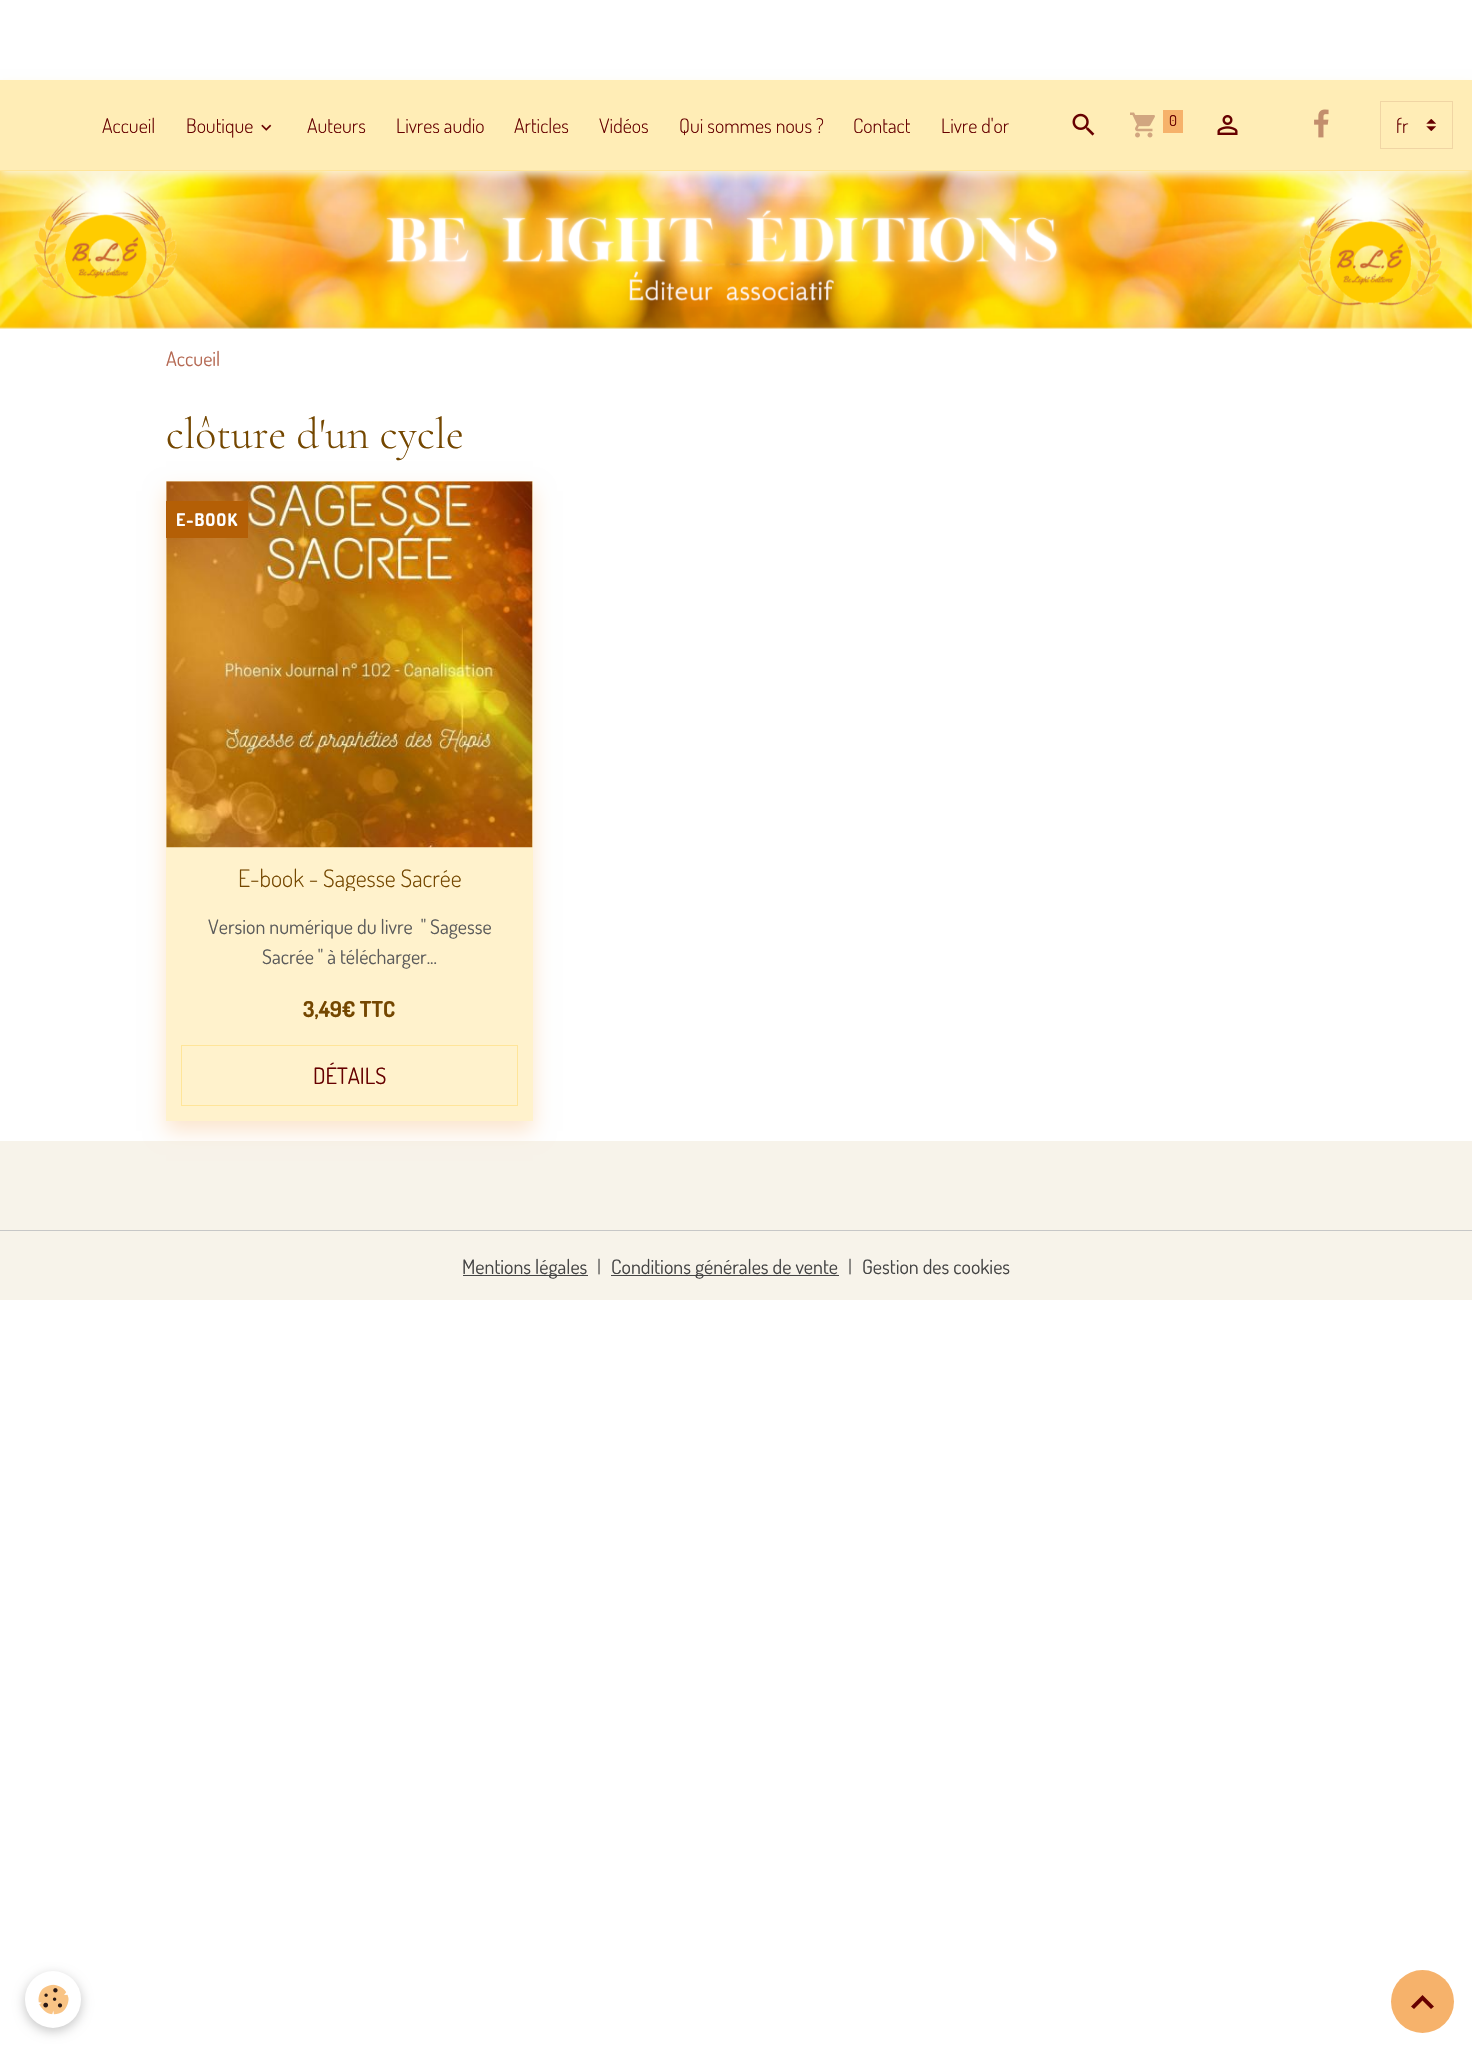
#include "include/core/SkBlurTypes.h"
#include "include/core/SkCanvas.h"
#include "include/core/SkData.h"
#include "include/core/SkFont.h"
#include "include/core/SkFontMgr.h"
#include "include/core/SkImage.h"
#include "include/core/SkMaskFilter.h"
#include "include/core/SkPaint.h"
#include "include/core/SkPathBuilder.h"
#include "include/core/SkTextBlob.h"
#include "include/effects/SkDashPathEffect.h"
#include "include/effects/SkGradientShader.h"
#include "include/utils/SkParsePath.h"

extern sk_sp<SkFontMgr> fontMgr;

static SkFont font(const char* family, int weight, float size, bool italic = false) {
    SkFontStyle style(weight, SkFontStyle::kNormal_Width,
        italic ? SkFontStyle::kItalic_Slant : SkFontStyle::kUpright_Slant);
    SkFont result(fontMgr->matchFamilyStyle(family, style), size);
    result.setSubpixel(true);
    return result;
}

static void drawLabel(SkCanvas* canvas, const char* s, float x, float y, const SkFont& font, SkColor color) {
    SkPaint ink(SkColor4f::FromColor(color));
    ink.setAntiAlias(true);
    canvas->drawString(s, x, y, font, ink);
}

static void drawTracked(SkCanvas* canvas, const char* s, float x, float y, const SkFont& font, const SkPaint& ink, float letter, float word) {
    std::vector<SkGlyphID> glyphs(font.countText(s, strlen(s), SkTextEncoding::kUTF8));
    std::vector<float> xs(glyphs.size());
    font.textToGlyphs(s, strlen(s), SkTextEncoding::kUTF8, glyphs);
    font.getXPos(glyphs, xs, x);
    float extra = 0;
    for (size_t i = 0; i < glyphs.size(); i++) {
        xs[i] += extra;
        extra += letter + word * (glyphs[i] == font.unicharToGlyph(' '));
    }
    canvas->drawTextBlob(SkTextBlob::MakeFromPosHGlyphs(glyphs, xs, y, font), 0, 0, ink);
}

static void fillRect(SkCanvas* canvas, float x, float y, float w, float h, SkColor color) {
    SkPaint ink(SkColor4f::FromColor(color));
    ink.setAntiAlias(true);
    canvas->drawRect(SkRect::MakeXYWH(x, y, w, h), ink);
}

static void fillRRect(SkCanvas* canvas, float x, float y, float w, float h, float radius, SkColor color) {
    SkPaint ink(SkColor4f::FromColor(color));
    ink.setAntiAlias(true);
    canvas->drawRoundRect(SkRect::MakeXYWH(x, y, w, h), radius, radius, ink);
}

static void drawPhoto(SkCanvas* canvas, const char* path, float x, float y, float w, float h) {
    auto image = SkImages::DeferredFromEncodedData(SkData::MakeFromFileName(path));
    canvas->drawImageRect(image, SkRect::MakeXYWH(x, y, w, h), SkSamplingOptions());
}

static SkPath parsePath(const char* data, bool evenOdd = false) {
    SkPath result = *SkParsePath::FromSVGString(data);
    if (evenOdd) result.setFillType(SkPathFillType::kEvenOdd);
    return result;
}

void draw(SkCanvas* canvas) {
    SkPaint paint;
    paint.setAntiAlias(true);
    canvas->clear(0xFFFFFFFF);
    drawPhoto(canvas, "assets/img7.png", 0, 171, 1472, 158);
    paint.setColor(0xFFFBF5E2);
    paint.setMaskFilter(SkMaskFilter::MakeBlur(kNormal_SkBlurStyle, 5));
    canvas->drawRect(SkRect::MakeXYWH(0, 84, 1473, 91), paint);
    paint.setMaskFilter(nullptr);
    fillRect(canvas, 0, 80, 1472, 90, 0xFFFFEDB6);
    fillRect(canvas, 0, 170, 1472, 1, 0xFFFFE599);
    SkFont font1 = font("Dosis", 300, 20);
    drawLabel(canvas, "Accueil", 102, 133, font1, 0xFF660000);
    drawLabel(canvas, "Boutique", 186, 133, font1, 0xFF660000);
    drawPhoto(canvas, "assets/img1.png", 261, 124, 11, 7);
    drawLabel(canvas, "Auteurs", 307, 133, font1, 0xFF660000);
    drawLabel(canvas, "Livres audio", 396, 133, font1, 0xFF660000);
    drawLabel(canvas, "Articles", 514, 133, font1, 0xFF660000);
    drawLabel(canvas, "Vidéos", 599, 133, font1, 0xFF660000);
    drawLabel(canvas, "Qui sommes nous ?", 679, 133, font1, 0xFF660000);
    drawLabel(canvas, "Contact", 853, 133, font1, 0xFF660000);
    drawLabel(canvas, "Livre d'or", 941, 133, font1, 0xFF660000);
    drawPhoto(canvas, "assets/img2.png", 1072, 113, 23, 23);
    drawPhoto(canvas, "assets/img3.png", 1130, 112, 25, 26);
    fillRect(canvas, 1163, 110, 20, 23, 0xFFF6B26B);
    SkFont font2 = font("Dosis", 400, 15);
    drawLabel(canvas, "0", 1169, 126, font2, 0xFF660000);
    drawPhoto(canvas, "assets/img4.png", 1217, 115, 21, 20);
    drawPhoto(canvas, "assets/img5.png", 1314, 109, 15, 29);
    drawPhoto(canvas, "assets/img6.png", 1426, 119, 10, 12);
    paint.setStroke(true);
    paint.setStrokeWidth(1);
    paint.setColor(0xFFF0D5A4);
    canvas->drawRect(SkRect::MakeXYWH(1380.5f, 101.5f, 72, 47), paint);
    drawLabel(canvas, "fr", 1396, 133, font1, 0xFF660000);
    SkFont font3 = font("Dosis", 400, 20);
    drawLabel(canvas, "Accueil", 166, 366, font3, 0xFFB56953);
    SkFont font4 = font("Cormorant Garamond", 300, 44);
    drawLabel(canvas, "clôture d'un cycle", 166, 448, font4, 0xFF744700);
    fillRect(canvas, 0, 1141, 1472, 159, 0xFFF7F3EA);
    paint.setStroke(false);
    paint.setColor(0xFFFCE5CD);
    paint.setMaskFilter(SkMaskFilter::MakeBlur(kNormal_SkBlurStyle, 10));
    canvas->drawRect(SkRect::MakeXYWH(166, 491, 367, 640), paint);
    paint.setMaskFilter(nullptr);
    fillRect(canvas, 166, 481, 367, 640, 0xFFFFF2CC);
    drawPhoto(canvas, "assets/img8.png", 166, 481, 367, 367);
    fillRect(canvas, 166, 501, 82, 37, 0xFFB45F06);
    SkFont font5 = font("Dosis", 700, 17.5f);
    paint.setColor(0xFFFFFFFF);
    drawTracked(canvas, "E-BOOK", 176, 526, font5, paint, 1, 0);
    canvas->save();
    canvas->clipRect(SkRect::MakeXYWH(181, 863, 337, 28));
    SkFont font6 = font("Dosis", 300, 24);
    drawLabel(canvas, "E-book - Sagesse Sacrée", 238, 887, font6, 0xFF744700);
    canvas->restore();
    drawLabel(canvas, "Version numérique du livre  \" Sagesse", 208, 934, font3, 0xFF5B5B5B);
    drawLabel(canvas, "Sacrée \" à télécharger...", 262, 964, font3, 0xFF5B5B5B);
    SkFont font7 = font("Dosis", 700, 22);
    drawLabel(canvas, "3,49€ TTC", 303, 1017, font7, 0xFF744700);
    paint.setStroke(true);
    paint.setColor(0xFFFFE599);
    canvas->drawRect(SkRect::MakeXYWH(181.5f, 1045.5f, 336, 60), paint);
    SkFont font8 = font("Dosis", 400, 22.5f);
    drawLabel(canvas, "DÉTAILS", 313, 1084, font8, 0xFF660000);
    fillRect(canvas, 0, 1230, 1472, 1, 0xFFC7C7C7);
    fillRect(canvas, 463, 1275, 125, 1, 0xFF444444);
    drawLabel(canvas, "Mentions légales", 462, 1274, font3, 0xFF444444);
    drawLabel(canvas, "|", 597, 1274, font3, 0xFF686765);
    fillRect(canvas, 611, 1275, 228, 1, 0xFF444444);
    drawLabel(canvas, "Conditions générales de vente", 611, 1274, font3, 0xFF444444);
    drawLabel(canvas, "|", 848, 1274, font3, 0xFF686765);
    drawLabel(canvas, "Gestion des cookies", 862, 1274, font3, 0xFF444444);
    paint.setStroke(false);
    paint.setColor(0x3D000000);
    paint.setMaskFilter(SkMaskFilter::MakeBlur(kNormal_SkBlurStyle, 6));
    canvas->drawRoundRect(SkRect::MakeXYWH(25, 1975, 56, 56), 28, 28, paint);
    paint.setMaskFilter(nullptr);
    fillRRect(canvas, 25, 1971, 56, 57, 28, 0xFFFFFFFF);
    drawPhoto(canvas, "assets/img9.png", 38, 1984, 31, 31);
    paint.setColor(0xFFF6B26B);
    canvas->drawCircle(1422.5f, 2001.5f, 31.5f, paint);
    paint.setColor(0xFF660000);
    canvas->drawPath(parsePath("M1422.5 1995L1434 2006.5L1431 2009L1422.5 2000.5L1414 2009L1411 2006.5Z"), paint);
}
